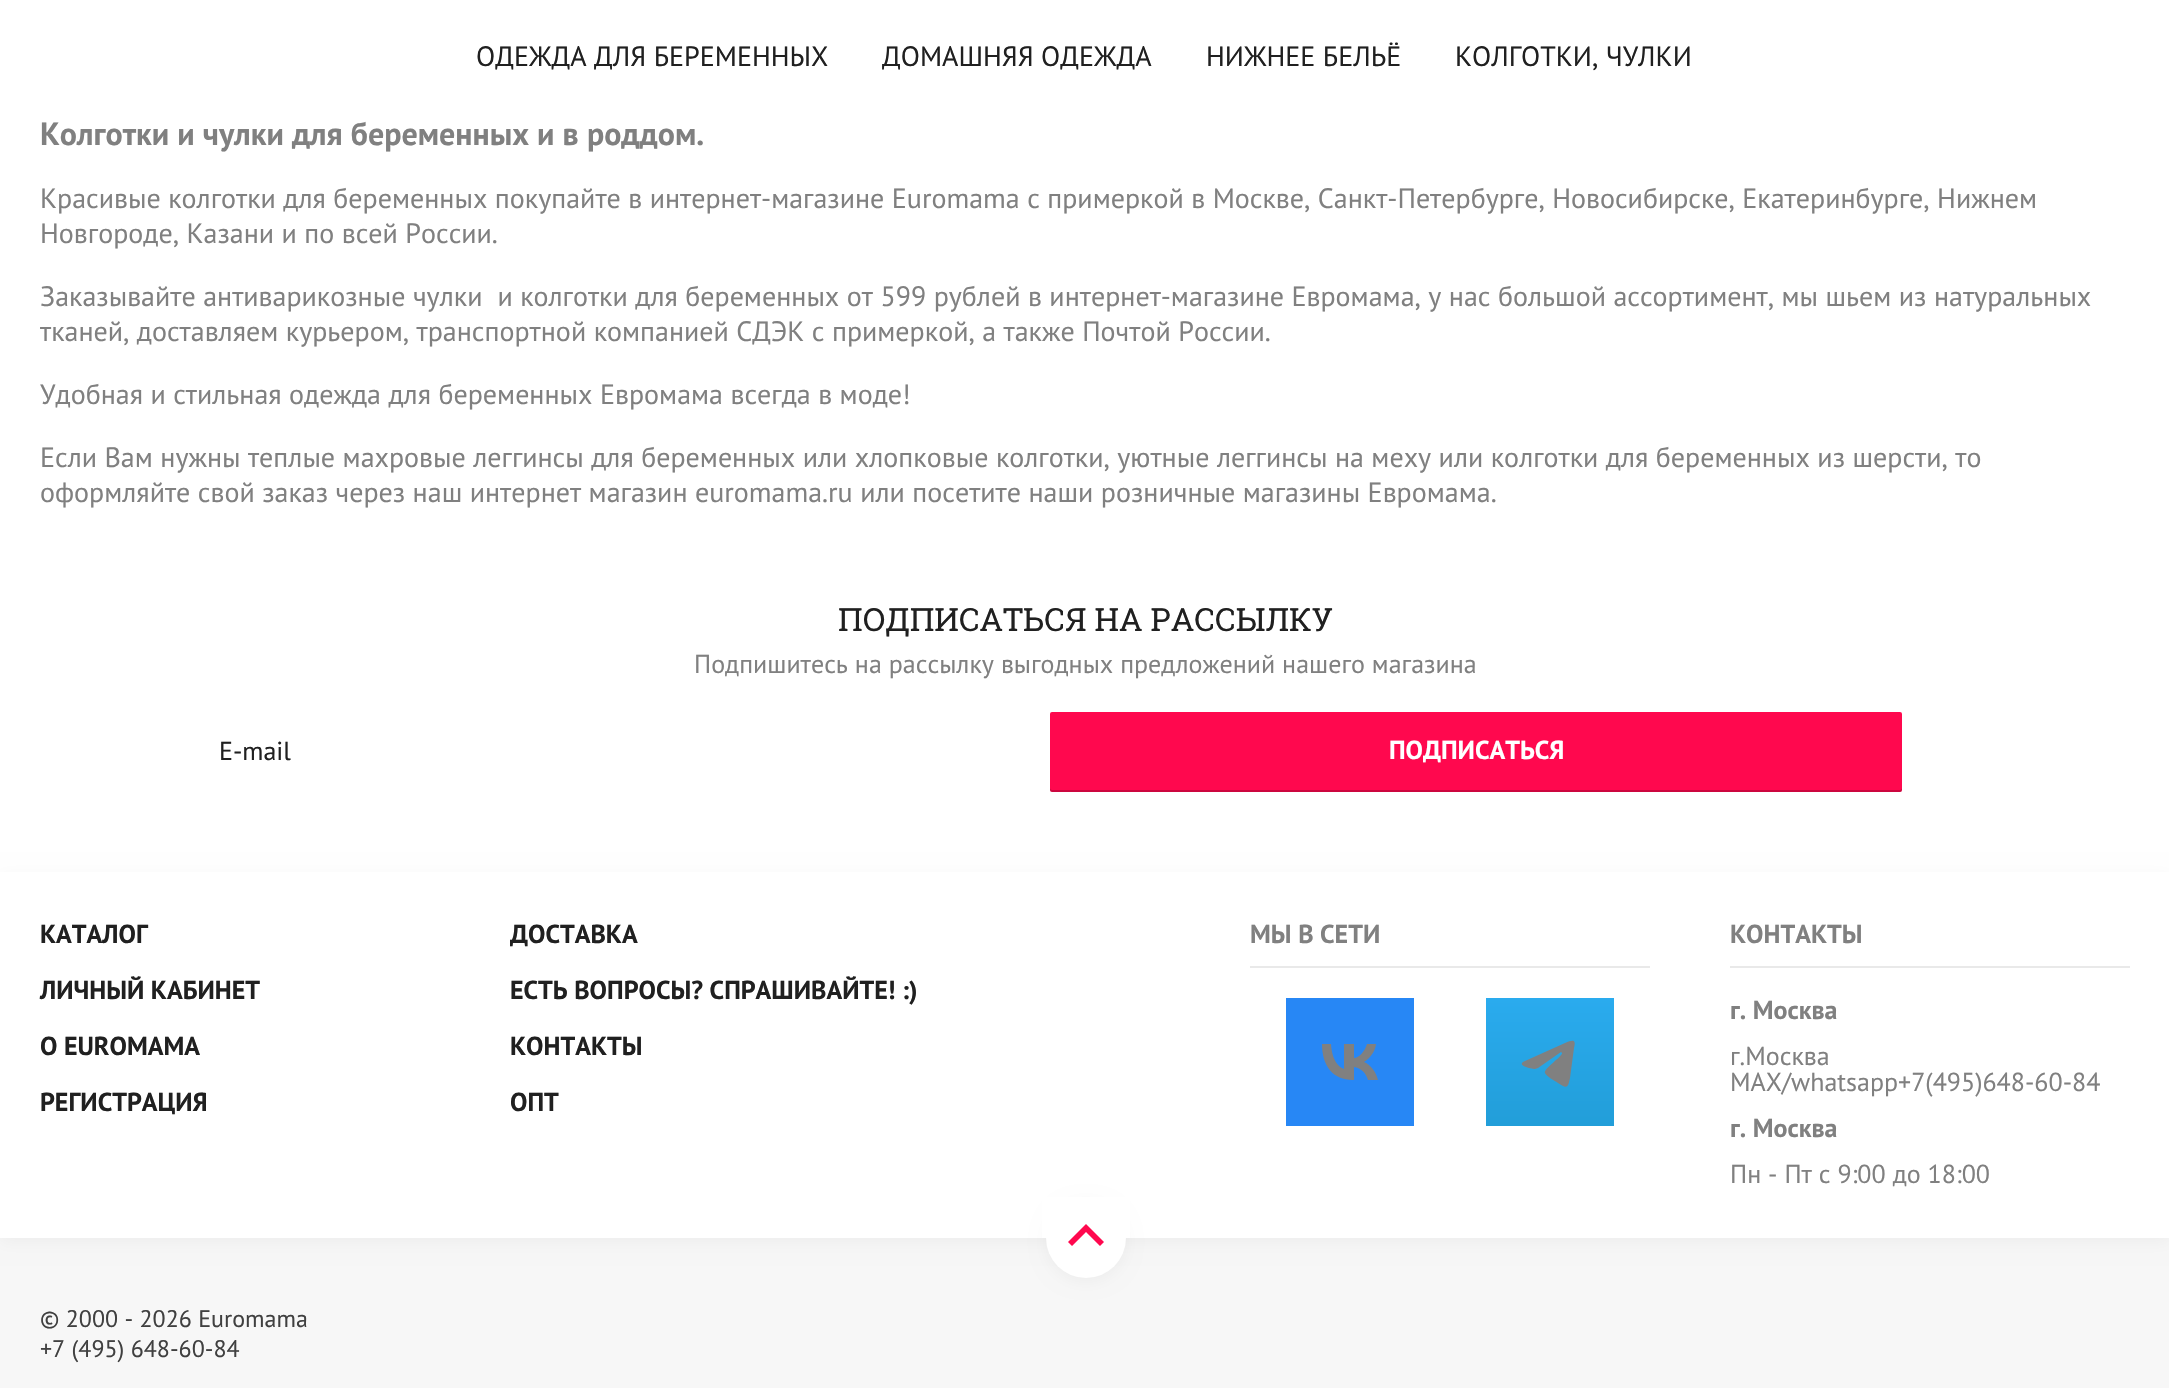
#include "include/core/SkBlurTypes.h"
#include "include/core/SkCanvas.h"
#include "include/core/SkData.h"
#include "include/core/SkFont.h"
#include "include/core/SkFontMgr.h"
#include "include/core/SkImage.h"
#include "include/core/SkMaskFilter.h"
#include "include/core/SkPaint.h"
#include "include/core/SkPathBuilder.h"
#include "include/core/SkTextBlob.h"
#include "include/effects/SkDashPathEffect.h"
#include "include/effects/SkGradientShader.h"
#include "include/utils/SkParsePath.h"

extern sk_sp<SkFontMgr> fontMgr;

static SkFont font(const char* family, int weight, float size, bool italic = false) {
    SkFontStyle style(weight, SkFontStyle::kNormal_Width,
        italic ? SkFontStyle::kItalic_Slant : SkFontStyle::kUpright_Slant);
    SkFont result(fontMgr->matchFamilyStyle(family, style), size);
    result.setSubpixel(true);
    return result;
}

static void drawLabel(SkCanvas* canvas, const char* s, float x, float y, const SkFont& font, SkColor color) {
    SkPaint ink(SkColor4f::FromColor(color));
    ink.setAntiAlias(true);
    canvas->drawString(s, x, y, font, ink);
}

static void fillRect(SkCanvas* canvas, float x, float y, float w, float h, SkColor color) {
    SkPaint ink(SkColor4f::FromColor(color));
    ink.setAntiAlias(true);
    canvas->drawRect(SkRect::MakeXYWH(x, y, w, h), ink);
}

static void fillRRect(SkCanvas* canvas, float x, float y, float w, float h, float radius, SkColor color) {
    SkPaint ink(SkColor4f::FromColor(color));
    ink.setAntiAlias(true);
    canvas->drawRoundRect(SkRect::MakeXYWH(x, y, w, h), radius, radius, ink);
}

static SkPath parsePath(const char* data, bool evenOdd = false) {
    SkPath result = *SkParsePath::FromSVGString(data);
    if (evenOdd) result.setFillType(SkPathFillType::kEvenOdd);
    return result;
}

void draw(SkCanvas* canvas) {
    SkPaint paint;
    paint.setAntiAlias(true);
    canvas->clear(0xFFFFFFFF);
    SkFont font1 = font("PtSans", 400, 28);
    drawLabel(canvas, "ОДЕЖДА ДЛЯ БЕРЕМЕННЫХ", 476, 66, font1, 0xFF202020);
    drawLabel(canvas, "ДОМАШНЯЯ ОДЕЖДА", 882, 66, font1, 0xFF202020);
    drawLabel(canvas, "НИЖНЕЕ БЕЛЬЁ", 1206, 66, font1, 0xFF202020);
    drawLabel(canvas, "КОЛГОТКИ, ЧУЛКИ", 1455, 66, font1, 0xFF202020);
    SkFont font2 = font("PtSans", 700, 32);
    drawLabel(canvas, "Колготки и чулки для беременных и в роддом.", 40, 145, font2, 0xFF808080);
    drawLabel(canvas, "Красивые колготки для беременных покупайте в интернет-магазине Euromama с примеркой в Москве, Санкт-Петербурге, Новосибирске, Екатеринбурге, Нижнем", 40, 208, font1, 0xFF808080);
    drawLabel(canvas, "Новгороде, Казани и по всей России.", 40, 243, font1, 0xFF808080);
    drawLabel(canvas, "Заказывайте антиварикозные чулки  и колготки для беременных от 599 рублей в интернет-магазине Евромама, у нас большой ассортимент, мы шьем из натуральных", 40, 306, font1, 0xFF808080);
    drawLabel(canvas, "тканей, доставляем курьером, транспортной компанией СДЭК с примеркой, а также Почтой России.", 40, 341, font1, 0xFF808080);
    drawLabel(canvas, "Удобная и стильная одежда для беременных Евромама всегда в моде!", 40, 404, font1, 0xFF808080);
    drawLabel(canvas, "Если Вам нужны теплые махровые леггинсы для беременных или хлопковые колготки, уютные леггинсы на меху или колготки для беременных из шерсти, то", 40, 467, font1, 0xFF808080);
    drawLabel(canvas, "оформляйте свой заказ через наш интернет магазин euromama.ru или посетите наши розничные магазины Евромама.", 40, 502, font1, 0xFF808080);
    SkFont font3 = font("Roboto Slab", 400, 32);
    drawLabel(canvas, "ПОДПИСАТЬСЯ НА РАССЫЛКУ", 838, 631, font3, 0xFF202020);
    SkFont font4 = font("PtSans", 400, 26);
    drawLabel(canvas, "Подпишитесь на рассылку выгодных предложений нашего магазина", 694, 673, font4, 0xFF808080);
    drawLabel(canvas, "E-mail", 219, 760, font4, 0xFF202020);
    fillRRect(canvas, 1050, 712, 852, 80, 2, 0xFFFF084E);
    paint.setColor(0x33000000);
    canvas->drawPath(parsePath("M1050 788V791L1052 792H1900C1902 792 1902 790 1902 788C1902 789 1901 790 1900 790H1052C1051 790 1050 789 1050 788Z"), paint);
    SkFont font5 = font("PtSans", 700, 26);
    drawLabel(canvas, "ПОДПИСАТЬСЯ", 1389, 759, font5, 0xFFFFFFFF);
    fillRect(canvas, 0, 1238, 2169, 150, 0xFFF7F7F7);
    paint.setColor(0x0A000000);
    paint.setMaskFilter(SkMaskFilter::MakeBlur(kNormal_SkBlurStyle, 8));
    canvas->drawRect(SkRect::MakeXYWH(0, 876, 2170, 366), paint);
    paint.setMaskFilter(nullptr);
    fillRect(canvas, 0, 872, 2169, 366, 0xFFFFFFFF);
    drawLabel(canvas, "КАТАЛОГ", 40, 943, font5, 0xFF202020);
    drawLabel(canvas, "ДОСТАВКА", 510, 943, font5, 0xFF202020);
    drawLabel(canvas, "ЛИЧНЫЙ КАБИНЕТ", 40, 999, font5, 0xFF202020);
    drawLabel(canvas, "ЕСТЬ ВОПРОСЫ? СПРАШИВАЙТЕ! :)", 510, 999, font5, 0xFF202020);
    drawLabel(canvas, "О EUROMAMA", 40, 1055, font5, 0xFF202020);
    drawLabel(canvas, "КОНТАКТЫ", 510, 1055, font5, 0xFF202020);
    drawLabel(canvas, "РЕГИСТРАЦИЯ", 40, 1111, font5, 0xFF202020);
    drawLabel(canvas, "ОПТ", 510, 1111, font5, 0xFF202020);
    drawLabel(canvas, "МЫ В СЕТИ", 1250, 943, font5, 0xFF808080);
    fillRect(canvas, 1250, 966, 400, 2, 0xFFE9E9E9);
    fillRect(canvas, 1286, 998, 128, 128, 0xFF2787F5);
    paint.setColor(0xFF808080);
    canvas->drawPath(parsePath("M1353 1080C1333 1080 1322 1066 1322 1044H1331C1332 1061 1339 1067 1344 1069V1044H1354V1058C1359 1058 1365 1051 1367 1044H1376C1375 1052 1370 1058 1364 1062C1371 1065 1376 1072 1378 1080H1368C1366 1073 1361 1068 1354 1067V1080Z"), paint);
    {
        const SkColor colors[] = {0xFF2AABEE, 0xFF229ED9};
        const float stops[] = {0, 1};
        const SkPoint ends[] = {{1550, 998}, {1550, 1125}};
        paint.setShader(SkGradientShader::MakeLinear(ends, colors, stops, 2, SkTileMode::kClamp));
        paint.setAlpha(255);
    }
    canvas->drawRect(SkRect::MakeXYWH(1486, 998, 128, 128), paint);
    paint.setShader(nullptr);
    paint.setColor(0xFF808080);
    canvas->drawPath(parsePath("M1525 1061L1565 1043C1574 1039 1576 1040 1574 1048L1570 1078C1568 1088 1567 1089 1558 1083C1555 1081 1546 1076 1545 1073C1543 1069 1563 1056 1562 1053L1561 1052L1538 1068L1535 1069C1531 1069 1515 1065 1525 1061Z", true), paint);
    drawLabel(canvas, "КОНТАКТЫ", 1730, 943, font5, 0xFF808080);
    fillRect(canvas, 1730, 966, 400, 2, 0xFFE9E9E9);
    drawLabel(canvas, "г. Москва", 1730, 1019, font5, 0xFF808080);
    drawLabel(canvas, "г.Москва", 1730, 1065, font4, 0xFF808080);
    drawLabel(canvas, "MAX/whatsapp+7(495)648-60-84", 1730, 1091, font4, 0xFF808080);
    drawLabel(canvas, "г. Москва", 1730, 1137, font5, 0xFF808080);
    drawLabel(canvas, "Пн - Пт с 9:00 до 18:00", 1730, 1183, font4, 0xFF808080);
    paint.setColor(0x0A000000);
    paint.setMaskFilter(SkMaskFilter::MakeBlur(kNormal_SkBlurStyle, 8));
    canvas->drawRoundRect(SkRect::MakeXYWH(1046, 1202, 80, 80), 40, 40, paint);
    paint.setMaskFilter(nullptr);
    paint.setColor(0xFFFFFFFF);
    canvas->drawCircle(1086, 1238, 40, paint);
    fillRect(canvas, 1042, 1197, 88, 41, 0xFFFFFFFF);
    paint.setColor(0xFFFF084E);
    canvas->drawPath(parsePath("M1104 1242L1100 1246L1086 1232L1072 1246L1068 1242L1086 1224Z", true), paint);
    SkFont font6 = font("PtSans", 400, 24);
    drawLabel(canvas, "© 2000 - 2026 Euromama", 40, 1327, font6, 0xFF404040);
    drawLabel(canvas, "+7 (495) 648-60-84", 40, 1357, font6, 0xFF404040);
}
